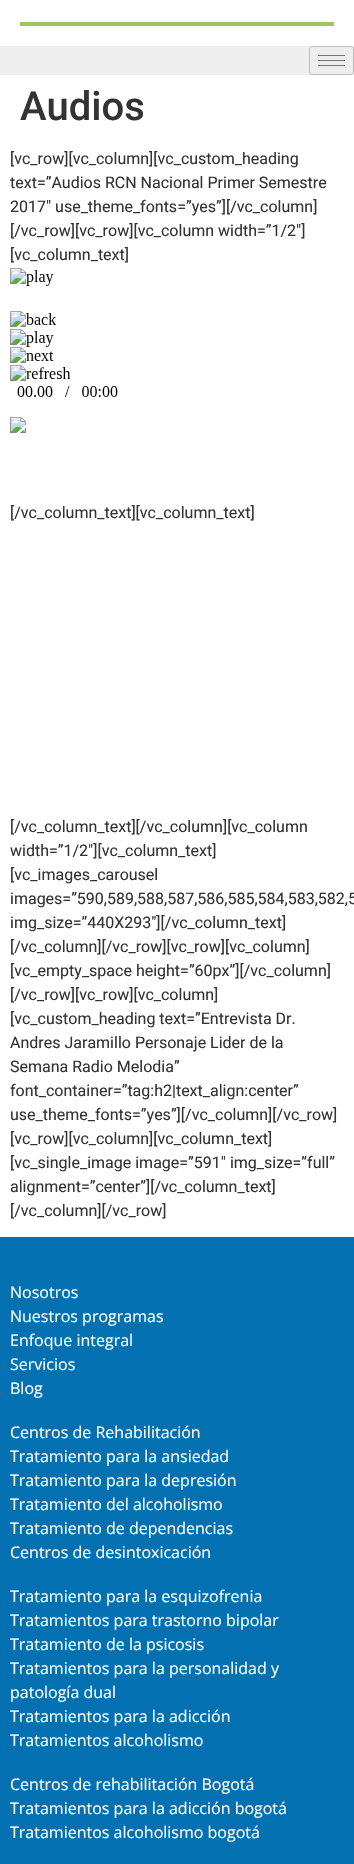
#include "include/core/SkBlurTypes.h"
#include "include/core/SkCanvas.h"
#include "include/core/SkData.h"
#include "include/core/SkFont.h"
#include "include/core/SkFontMgr.h"
#include "include/core/SkImage.h"
#include "include/core/SkMaskFilter.h"
#include "include/core/SkPaint.h"
#include "include/core/SkPathBuilder.h"
#include "include/core/SkTextBlob.h"
#include "include/effects/SkDashPathEffect.h"
#include "include/effects/SkGradientShader.h"
#include "include/utils/SkParsePath.h"

extern sk_sp<SkFontMgr> fontMgr;

static SkFont font(const char* family, int weight, float size, bool italic = false) {
    SkFontStyle style(weight, SkFontStyle::kNormal_Width,
        italic ? SkFontStyle::kItalic_Slant : SkFontStyle::kUpright_Slant);
    SkFont result(fontMgr->matchFamilyStyle(family, style), size);
    result.setSubpixel(true);
    return result;
}

static void drawLabel(SkCanvas* canvas, const char* s, float x, float y, const SkFont& font, SkColor color) {
    SkPaint ink(SkColor4f::FromColor(color));
    ink.setAntiAlias(true);
    canvas->drawString(s, x, y, font, ink);
}

static void fillRect(SkCanvas* canvas, float x, float y, float w, float h, SkColor color) {
    SkPaint ink(SkColor4f::FromColor(color));
    ink.setAntiAlias(true);
    canvas->drawRect(SkRect::MakeXYWH(x, y, w, h), ink);
}

static void drawPhoto(SkCanvas* canvas, const char* path, float x, float y, float w, float h) {
    auto image = SkImages::DeferredFromEncodedData(SkData::MakeFromFileName(path));
    canvas->drawImageRect(image, SkRect::MakeXYWH(x, y, w, h), SkSamplingOptions());
}

void draw(SkCanvas* canvas) {
    SkPaint paint;
    paint.setAntiAlias(true);
    canvas->clear(0xFFFFFFFF);
    fillRect(canvas, 20, 22, 314, 4, 0xFF9FC365);
    fillRect(canvas, 0, 46, 354, 29, 0xFFEEEEEE);
    paint.setStroke(true);
    paint.setStrokeWidth(1);
    paint.setColor(0xFFBEBEBE);
    canvas->drawRoundRect(SkRect::MakeXYWH(309.5f, 46.5f, 44, 28), 2.5f, 2.5f, paint);
    fillRect(canvas, 318, 55, 27, 1, 0xFF777777);
    fillRect(canvas, 318, 60, 27, 1, 0xFF777777);
    fillRect(canvas, 318, 65, 27, 1, 0xFF777777);
    SkFont font1 = font("Roboto", 500, 40);
    drawLabel(canvas, "Audios", 20, 120, font1, 0xFF333333);
    SkFont font2 = font("Roboto", 400, 16);
    drawLabel(canvas, "[vc_row][vc_column][vc_custom_heading", 10, 164, font2, 0xFF333333);
    drawLabel(canvas, "text=”Audios RCN Nacional Primer Semestre", 10, 188, font2, 0xFF333333);
    drawLabel(canvas, "2017″ use_theme_fonts=”yes”][/vc_column]", 10, 212, font2, 0xFF333333);
    drawLabel(canvas, "[/vc_row][vc_row][vc_column width=”1/2″]", 10, 236, font2, 0xFF333333);
    drawLabel(canvas, "[vc_column_text]", 10, 260, font2, 0xFF333333);
    drawPhoto(canvas, "assets/img1.png", 10, 268, 108, 165);
    drawLabel(canvas, "[/vc_column_text][vc_column_text]", 10, 518, font2, 0xFF333333);
    drawLabel(canvas, "[/vc_column_text][/vc_column][vc_column", 10, 832, font2, 0xFF333333);
    drawLabel(canvas, "width=”1/2″][vc_column_text]", 10, 856, font2, 0xFF333333);
    drawLabel(canvas, "[vc_images_carousel", 10, 880, font2, 0xFF333333);
    drawLabel(canvas, "images=”590,589,588,587,586,585,584,583,582,5", 10, 904, font2, 0xFF333333);
    drawLabel(canvas, "img_size=”440X293″][/vc_column_text]", 10, 928, font2, 0xFF333333);
    drawLabel(canvas, "[/vc_column][/vc_row][vc_row][vc_column]", 10, 952, font2, 0xFF333333);
    drawLabel(canvas, "[vc_empty_space height=”60px”][/vc_column]", 10, 976, font2, 0xFF333333);
    drawLabel(canvas, "[/vc_row][vc_row][vc_column]", 10, 1000, font2, 0xFF333333);
    drawLabel(canvas, "[vc_custom_heading text=”Entrevista Dr.", 10, 1024, font2, 0xFF333333);
    drawLabel(canvas, "Andres Jaramillo Personaje Lider de la", 10, 1048, font2, 0xFF333333);
    drawLabel(canvas, "Semana Radio Melodia”", 10, 1072, font2, 0xFF333333);
    drawLabel(canvas, "font_container=”tag:h2|text_align:center”", 10, 1096, font2, 0xFF333333);
    drawLabel(canvas, "use_theme_fonts=”yes”][/vc_column][/vc_row]", 10, 1120, font2, 0xFF333333);
    drawLabel(canvas, "[vc_row][vc_column][vc_column_text]", 10, 1144, font2, 0xFF333333);
    drawLabel(canvas, "[vc_single_image image=”591″ img_size=”full”", 10, 1168, font2, 0xFF333333);
    drawLabel(canvas, "alignment=”center”][/vc_column_text]", 10, 1192, font2, 0xFF333333);
    drawLabel(canvas, "[/vc_column][/vc_row]", 10, 1216, font2, 0xFF333333);
    fillRect(canvas, 0, 1237, 354, 627, 0xFF0371B1);
    SkFont font3 = font("Open Sans", 400, 16);
    drawLabel(canvas, "Nosotros", 10, 1298, font3, 0xFFFFFFFF);
    drawLabel(canvas, "Nuestros programas", 10, 1322, font3, 0xFFFFFFFF);
    drawLabel(canvas, "Enfoque integral", 10, 1346, font3, 0xFFFFFFFF);
    drawLabel(canvas, "Servicios", 10, 1370, font3, 0xFFFFFFFF);
    drawLabel(canvas, "Blog", 10, 1394, font3, 0xFFFFFFFF);
    drawLabel(canvas, "Centros de Rehabilitación", 10, 1438, font3, 0xFFFFFFFF);
    drawLabel(canvas, "Tratamiento para la ansiedad", 10, 1462, font3, 0xFFFFFFFF);
    drawLabel(canvas, "Tratamiento para la depresión", 10, 1486, font3, 0xFFFFFFFF);
    drawLabel(canvas, "Tratamiento del alcoholismo", 10, 1510, font3, 0xFFFFFFFF);
    drawLabel(canvas, "Tratamiento de dependencias", 10, 1534, font3, 0xFFFFFFFF);
    drawLabel(canvas, "Centros de desintoxicación", 10, 1558, font3, 0xFFFFFFFF);
    drawLabel(canvas, "Tratamiento para la esquizofrenia", 10, 1602, font3, 0xFFFFFFFF);
    drawLabel(canvas, "Tratamientos para trastorno bipolar", 10, 1626, font3, 0xFFFFFFFF);
    drawLabel(canvas, "Tratamiento de la psicosis", 10, 1650, font3, 0xFFFFFFFF);
    drawLabel(canvas, "Tratamientos para la personalidad y", 10, 1674, font3, 0xFFFFFFFF);
    drawLabel(canvas, "patología dual", 10, 1698, font3, 0xFFFFFFFF);
    drawLabel(canvas, "Tratamientos para la adicción", 10, 1722, font3, 0xFFFFFFFF);
    drawLabel(canvas, "Tratamientos alcoholismo", 10, 1746, font3, 0xFFFFFFFF);
    drawLabel(canvas, "Centros de rehabilitación Bogotá", 10, 1790, font3, 0xFFFFFFFF);
    drawLabel(canvas, "Tratamientos para la adicción bogotá", 10, 1814, font3, 0xFFFFFFFF);
    drawLabel(canvas, "Tratamientos alcoholismo bogotá", 10, 1838, font3, 0xFFFFFFFF);
}
